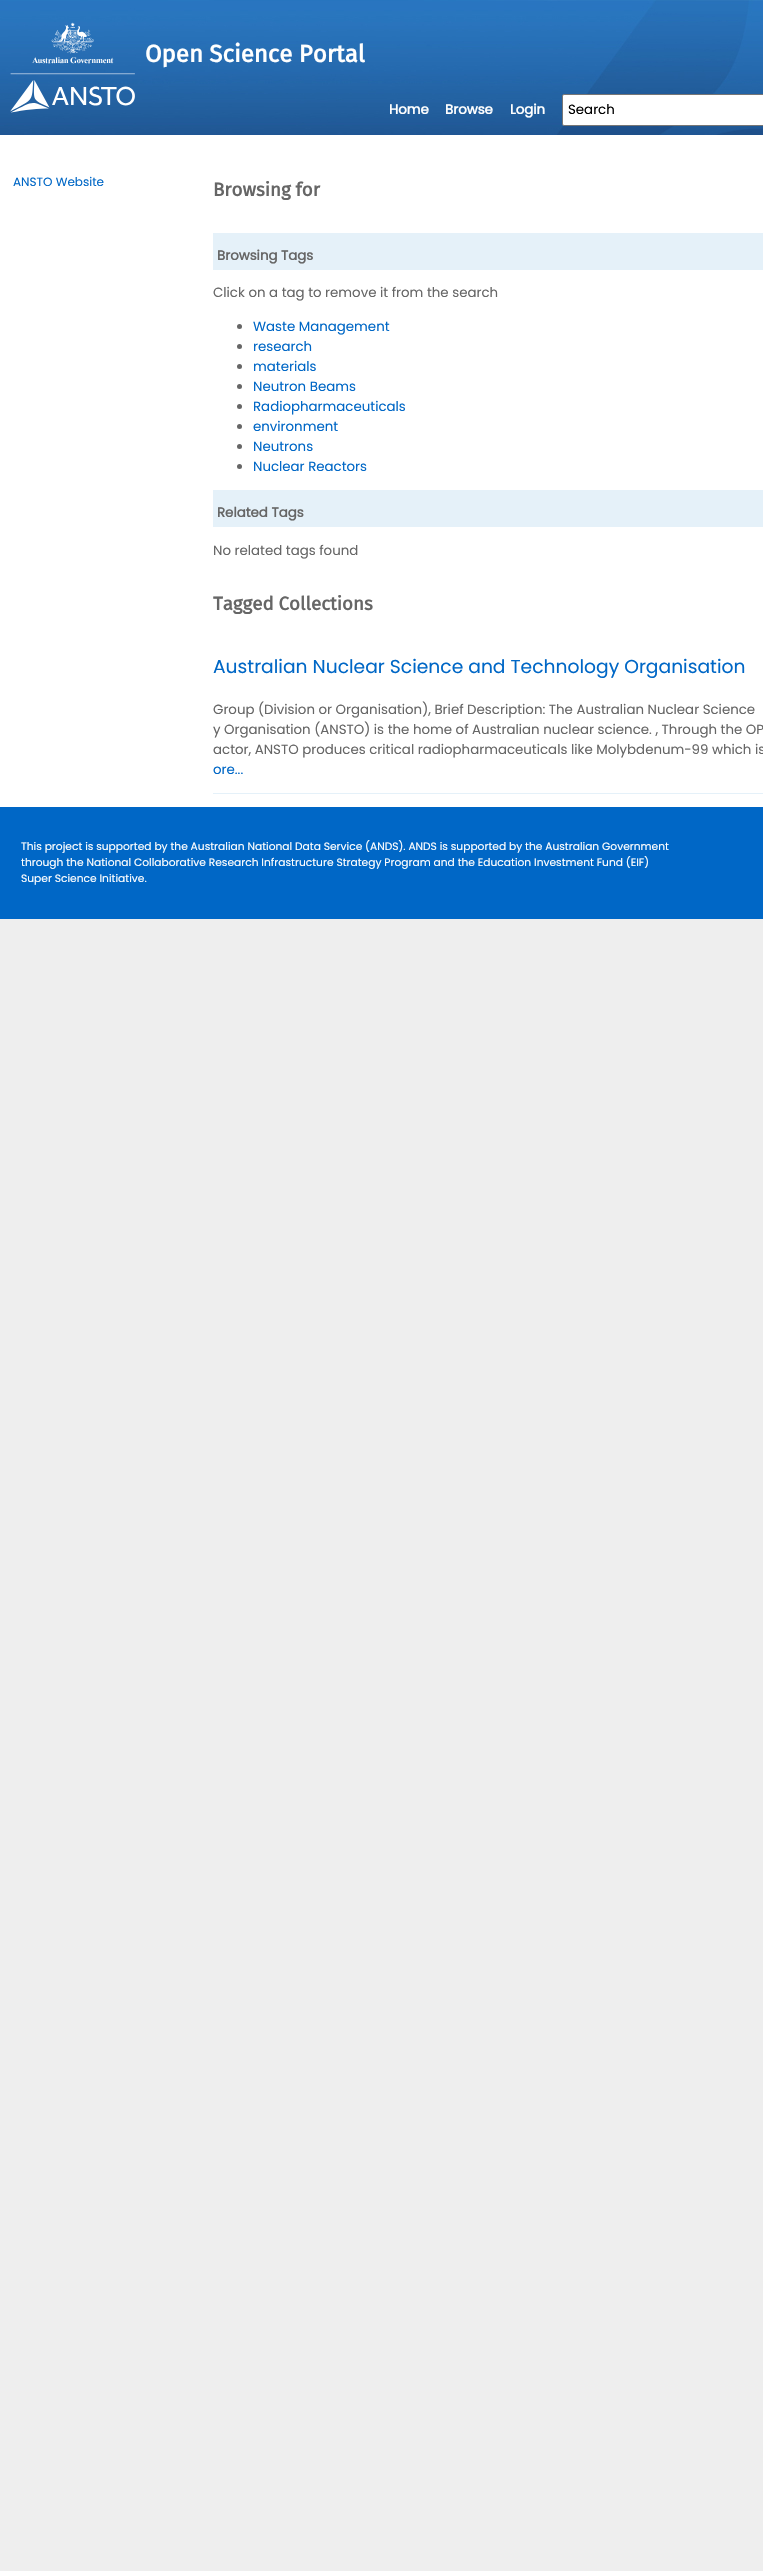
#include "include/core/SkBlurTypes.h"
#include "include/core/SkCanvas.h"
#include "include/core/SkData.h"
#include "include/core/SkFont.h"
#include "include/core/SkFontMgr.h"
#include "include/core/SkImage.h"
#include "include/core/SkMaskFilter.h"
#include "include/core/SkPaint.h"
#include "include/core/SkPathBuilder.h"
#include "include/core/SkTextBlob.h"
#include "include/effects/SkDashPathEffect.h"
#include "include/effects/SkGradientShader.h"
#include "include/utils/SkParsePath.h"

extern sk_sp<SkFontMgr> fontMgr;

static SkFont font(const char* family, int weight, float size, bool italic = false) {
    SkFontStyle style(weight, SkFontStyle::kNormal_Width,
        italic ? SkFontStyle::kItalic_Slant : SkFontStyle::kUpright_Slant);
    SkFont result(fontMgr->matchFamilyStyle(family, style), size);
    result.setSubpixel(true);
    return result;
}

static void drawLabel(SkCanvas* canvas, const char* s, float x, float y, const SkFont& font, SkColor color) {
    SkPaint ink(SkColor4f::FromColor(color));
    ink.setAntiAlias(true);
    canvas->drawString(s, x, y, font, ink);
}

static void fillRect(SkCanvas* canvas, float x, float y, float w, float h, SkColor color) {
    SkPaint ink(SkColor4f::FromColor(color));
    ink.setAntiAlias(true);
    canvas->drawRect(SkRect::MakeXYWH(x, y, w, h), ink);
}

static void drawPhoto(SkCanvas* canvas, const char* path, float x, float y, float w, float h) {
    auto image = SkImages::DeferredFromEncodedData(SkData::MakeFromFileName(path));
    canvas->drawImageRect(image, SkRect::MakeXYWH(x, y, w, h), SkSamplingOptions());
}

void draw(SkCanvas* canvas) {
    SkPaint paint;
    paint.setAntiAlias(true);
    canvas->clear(0xFFEEEEEE);
    fillRect(canvas, 0, 135, 763, 672, 0xFFFFFFFF);
    drawPhoto(canvas, "assets/img1.png", 0, 0, 763, 135);
    drawPhoto(canvas, "assets/img2.png", 10, 22, 125, 91);
    SkFont font1 = font("Fira Sans", 700, 24);
    drawLabel(canvas, "Open Science Portal", 145, 62, font1, 0xFFFFFFFF);
    SkFont font2 = font("Poppins", 700, 13.35f);
    drawLabel(canvas, "Home", 389, 114, font2, 0xFFFFFFFF);
    drawLabel(canvas, "Browse", 445, 114, font2, 0xFFFFFFFF);
    drawLabel(canvas, "Login", 510, 114, font2, 0xFFFFFFFF);
    paint.setColor(0xFFFFFFFF);
    canvas->drawRoundRect(SkRect::MakeXYWH(562.5f, 94.5f, 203, 31), 1.5f, 1.5f, paint);
    paint.setStroke(true);
    paint.setStrokeWidth(1);
    paint.setColor(0xFF767676);
    canvas->drawRoundRect(SkRect::MakeXYWH(562.5f, 94.5f, 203, 31), 1.5f, 1.5f, paint);
    SkFont font3 = font("Poppins", 400, 13.35f);
    drawLabel(canvas, "Search", 568, 114, font3, 0xFF000000);
    SkFont font4 = font("Poppins", 400, 12);
    drawLabel(canvas, "ANSTO Website", 13, 186, font4, 0xFF0067C6);
    SkFont font5 = font("Fira Sans", 700, 18.7f);
    drawLabel(canvas, "Browsing for", 213, 196, font5, 0xFF666666);
    fillRect(canvas, 213, 233, 550, 37, 0xFFE5F1F9);
    drawLabel(canvas, "Browsing Tags", 217, 260, font2, 0xFF666666);
    drawLabel(canvas, "Click on a tag to remove it from the search", 213, 297, font3, 0xFF666666);
    paint.setStroke(false);
    paint.setColor(0xFF666666);
    canvas->drawCircle(239.5f, 326.5f, 2.5f, paint);
    drawLabel(canvas, "Waste Management", 253, 331, font3, 0xFF0067C6);
    canvas->drawCircle(239.5f, 346.5f, 2.5f, paint);
    drawLabel(canvas, "research", 253, 351, font3, 0xFF0067C6);
    canvas->drawCircle(239.5f, 366.5f, 2.5f, paint);
    drawLabel(canvas, "materials", 253, 371, font3, 0xFF0067C6);
    canvas->drawCircle(239.5f, 386.5f, 2.5f, paint);
    drawLabel(canvas, "Neutron Beams", 253, 391, font3, 0xFF0067C6);
    canvas->drawCircle(239.5f, 406.5f, 2.5f, paint);
    drawLabel(canvas, "Radiopharmaceuticals", 253, 411, font3, 0xFF0067C6);
    canvas->drawCircle(239.5f, 426.5f, 2.5f, paint);
    drawLabel(canvas, "environment", 253, 431, font3, 0xFF0067C6);
    canvas->drawCircle(239.5f, 446.5f, 2.5f, paint);
    drawLabel(canvas, "Neutrons", 253, 451, font3, 0xFF0067C6);
    canvas->drawCircle(239.5f, 466.5f, 2.5f, paint);
    drawLabel(canvas, "Nuclear Reactors", 253, 471, font3, 0xFF0067C6);
    fillRect(canvas, 213, 490, 550, 37, 0xFFE5F1F9);
    drawLabel(canvas, "Related Tags", 217, 517, font2, 0xFF666666);
    drawLabel(canvas, "No related tags found", 213, 555, font3, 0xFF666666);
    drawLabel(canvas, "Tagged Collections", 213, 610, font5, 0xFF666666);
    fillRect(canvas, 213, 793, 550, 1, 0xFFE5F1F9);
    SkFont font6 = font("Poppins", 400, 18.7f);
    drawLabel(canvas, "Australian Nuclear Science and Technology Organisation", 213, 673, font6, 0xFF0067C6);
    drawLabel(canvas, "Group (Division or Organisation), Brief Description: The Australian Nuclear Science", 213, 714, font3, 0xFF666666);
    drawLabel(canvas, "y Organisation (ANSTO) is the home of Australian nuclear science. , Through the OP", 213, 734, font3, 0xFF666666);
    drawLabel(canvas, "actor, ANSTO produces critical radiopharmaceuticals like Molybdenum-99 which is", 213, 754, font3, 0xFF666666);
    drawLabel(canvas, "ore...", 213, 774, font3, 0xFF0067C6);
    fillRect(canvas, 0, 807, 763, 112, 0xFF0067C6);
    SkFont font7 = font("Poppins", 400, 10.67f);
    drawLabel(canvas, "This project is supported by the Australian National Data Service (ANDS). ANDS is supported by the Australian Government", 21, 850, font7, 0xFFFFFFFF);
    drawLabel(canvas, "through the National Collaborative Research Infrastructure Strategy Program and the Education Investment Fund (EIF)", 21, 866, font7, 0xFFFFFFFF);
    drawLabel(canvas, "Super Science Initiative.", 21, 882, font7, 0xFFFFFFFF);
}
